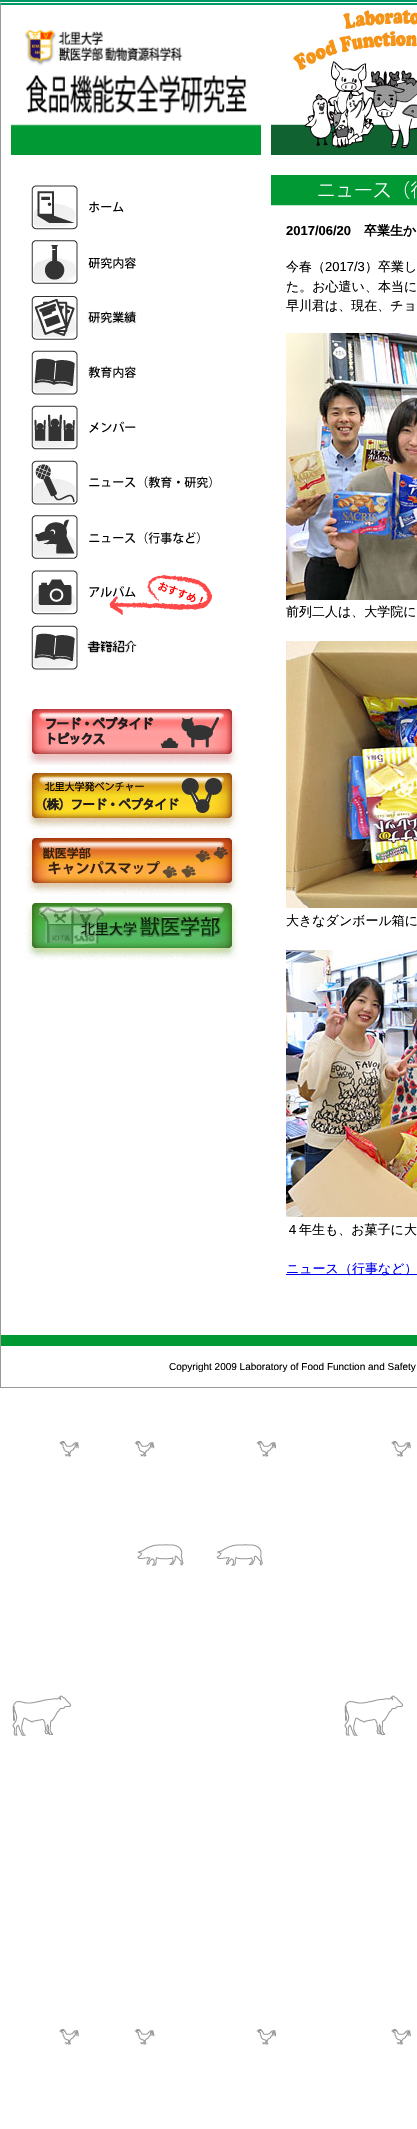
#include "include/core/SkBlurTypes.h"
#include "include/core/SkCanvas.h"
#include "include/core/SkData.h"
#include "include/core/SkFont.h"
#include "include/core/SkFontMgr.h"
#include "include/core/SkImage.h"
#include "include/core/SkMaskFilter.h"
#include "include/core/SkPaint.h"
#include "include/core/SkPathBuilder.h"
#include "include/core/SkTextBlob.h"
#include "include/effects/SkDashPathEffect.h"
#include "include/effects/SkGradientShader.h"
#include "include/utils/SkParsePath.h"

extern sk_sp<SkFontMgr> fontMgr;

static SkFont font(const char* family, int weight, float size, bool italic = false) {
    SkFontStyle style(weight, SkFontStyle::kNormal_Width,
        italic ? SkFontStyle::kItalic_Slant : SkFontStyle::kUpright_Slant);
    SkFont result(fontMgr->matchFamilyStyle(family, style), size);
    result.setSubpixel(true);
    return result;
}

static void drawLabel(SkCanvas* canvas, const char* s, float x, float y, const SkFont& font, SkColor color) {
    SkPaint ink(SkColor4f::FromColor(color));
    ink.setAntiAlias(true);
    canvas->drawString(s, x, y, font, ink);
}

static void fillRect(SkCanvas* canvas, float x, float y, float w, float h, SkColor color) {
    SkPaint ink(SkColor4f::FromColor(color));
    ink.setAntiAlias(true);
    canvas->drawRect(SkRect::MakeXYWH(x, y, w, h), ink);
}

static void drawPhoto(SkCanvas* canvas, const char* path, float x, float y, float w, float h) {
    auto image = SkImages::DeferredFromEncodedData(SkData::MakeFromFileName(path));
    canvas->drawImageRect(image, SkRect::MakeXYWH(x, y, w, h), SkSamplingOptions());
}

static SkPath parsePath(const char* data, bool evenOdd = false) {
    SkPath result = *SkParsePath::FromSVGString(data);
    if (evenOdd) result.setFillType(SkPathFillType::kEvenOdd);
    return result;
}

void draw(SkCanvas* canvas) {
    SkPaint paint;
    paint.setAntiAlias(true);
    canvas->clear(0xFFFFFFFF);
    drawPhoto(canvas, "assets/img1.png", 12, 1388, 399, 657);
    fillRect(canvas, 0, 0, 417, 2, 0xFF009966);
    fillRect(canvas, 0, 3, 417, 2, 0xFF009966);
    fillRect(canvas, 0, 1387, 417, 1, 0xFF999999);
    paint.setColor(0xFF999999);
    canvas->drawPath(parsePath("M0 1388V0L1 5V1387Z"), paint);
    drawPhoto(canvas, "assets/img2.png", 11, 29, 250, 126);
    drawPhoto(canvas, "assets/img3.png", 31, 185, 93, 45);
    drawPhoto(canvas, "assets/img4.png", 31, 240, 105, 44);
    drawPhoto(canvas, "assets/img5.png", 31, 296, 106, 44);
    drawPhoto(canvas, "assets/img6.png", 31, 350, 105, 45);
    drawPhoto(canvas, "assets/img7.png", 31, 405, 105, 45);
    drawPhoto(canvas, "assets/img8.png", 31, 460, 181, 45);
    drawPhoto(canvas, "assets/img9.png", 31, 515, 169, 44);
    drawPhoto(canvas, "assets/img10.png", 31, 570, 181, 45);
    drawPhoto(canvas, "assets/img11.png", 31, 625, 106, 45);
    drawPhoto(canvas, "assets/img12.png", 26, 709, 212, 56);
    drawPhoto(canvas, "assets/img13.png", 25, 771, 214, 59);
    drawPhoto(canvas, "assets/img14.png", 25, 836, 214, 59);
    drawPhoto(canvas, "assets/img15.png", 25, 901, 214, 59);
    drawPhoto(canvas, "assets/img16.png", 271, 10, 146, 145);
    drawPhoto(canvas, "assets/img17.png", 271, 175, 146, 31);
    SkFont font1 = font("Liberation Sans", 700, 13);
    drawLabel(canvas, "2017/06/20", 286, 235, font1, 0xFF000000);
    SkFont font2 = font("WenQuanYi Zen Hei", 700, 13);
    drawLabel(canvas, "卒業生か", 364, 235, font2, 0xFF000000);
    SkFont font3 = font("WenQuanYi Zen Hei", 500, 13);
    drawLabel(canvas, "今春（", 286, 271, font3, 0xFF000000);
    SkFont font4 = font("Liberation Sans", 400, 13);
    drawLabel(canvas, "2017/3", 325, 271, font4, 0xFF000000);
    drawLabel(canvas, "）卒業し", 365, 271, font3, 0xFF000000);
    drawLabel(canvas, "た。お心遣い、本当に", 286, 291, font3, 0xFF000000);
    drawLabel(canvas, "早川君は、現在、チョ", 286, 310, font3, 0xFF000000);
    drawPhoto(canvas, "assets/img18.png", 286, 333, 131, 267);
    drawLabel(canvas, "前列二人は、大学院に", 286, 616, font3, 0xFF000000);
    drawPhoto(canvas, "assets/img19.png", 286, 641, 131, 267);
    drawLabel(canvas, "大きなダンボール箱に", 286, 925, font3, 0xFF000000);
    drawPhoto(canvas, "assets/img20.png", 286, 950, 131, 267);
    drawLabel(canvas, "４年生も、お菓子に大", 286, 1234, font3, 0xFF000000);
    fillRect(canvas, 286, 1274, 131, 1, 0xFF0000EE);
    drawLabel(canvas, "ニュース（行事など）", 286, 1273, font3, 0xFF0000EE);
    fillRect(canvas, 1, 1335, 416, 11, 0xFF009933);
    SkFont font5 = font("Liberation Sans", 400, 10);
    drawLabel(canvas, "Copyright 2009 Laboratory of Food Function and Safety", 169, 1370, font5, 0xFF000000);
}
